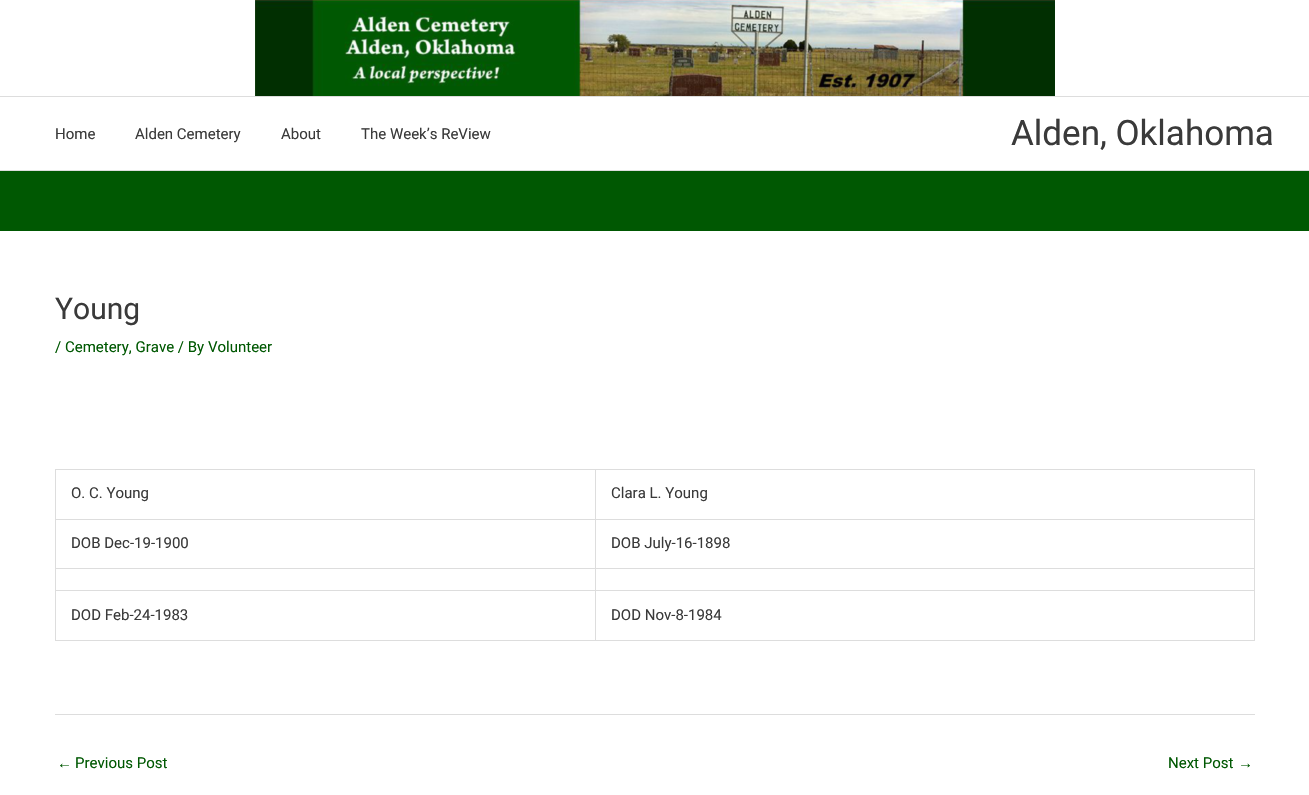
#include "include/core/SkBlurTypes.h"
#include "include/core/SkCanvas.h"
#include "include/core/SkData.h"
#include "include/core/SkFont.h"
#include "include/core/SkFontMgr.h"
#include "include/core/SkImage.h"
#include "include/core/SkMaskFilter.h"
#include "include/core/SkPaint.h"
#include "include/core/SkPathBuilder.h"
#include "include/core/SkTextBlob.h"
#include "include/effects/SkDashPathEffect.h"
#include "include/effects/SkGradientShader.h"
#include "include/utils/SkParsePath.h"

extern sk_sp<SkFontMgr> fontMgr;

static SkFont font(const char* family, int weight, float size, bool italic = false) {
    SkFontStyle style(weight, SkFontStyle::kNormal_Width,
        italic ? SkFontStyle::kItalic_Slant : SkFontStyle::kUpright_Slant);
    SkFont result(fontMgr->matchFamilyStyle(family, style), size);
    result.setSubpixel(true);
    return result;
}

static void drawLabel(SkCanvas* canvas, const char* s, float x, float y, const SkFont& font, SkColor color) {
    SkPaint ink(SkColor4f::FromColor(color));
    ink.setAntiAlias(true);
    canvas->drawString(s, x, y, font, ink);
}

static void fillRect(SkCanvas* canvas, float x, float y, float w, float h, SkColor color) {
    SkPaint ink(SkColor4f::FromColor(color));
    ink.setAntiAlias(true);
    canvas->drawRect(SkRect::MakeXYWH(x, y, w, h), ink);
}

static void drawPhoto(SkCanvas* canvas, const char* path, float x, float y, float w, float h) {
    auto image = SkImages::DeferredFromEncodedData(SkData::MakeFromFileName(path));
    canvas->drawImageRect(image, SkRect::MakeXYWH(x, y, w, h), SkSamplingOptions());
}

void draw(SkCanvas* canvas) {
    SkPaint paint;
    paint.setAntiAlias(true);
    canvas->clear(0xFFFFFFFF);
    fillRect(canvas, 0, 96, 1309, 1, 0xFFDDDDDD);
    drawPhoto(canvas, "assets/img1.png", 255, 0, 800, 96);
    fillRect(canvas, 0, 170, 1309, 1, 0xFFDDDDDD);
    SkFont font1 = font("Roboto", 400, 15);
    drawLabel(canvas, "Home", 55, 139, font1, 0xFF3A3A3A);
    drawLabel(canvas, "Alden Cemetery", 135, 139, font1, 0xFF3A3A3A);
    drawLabel(canvas, "About", 281, 139, font1, 0xFF3A3A3A);
    drawLabel(canvas, "The Week’s ReView", 361, 139, font1, 0xFF3A3A3A);
    SkFont font2 = font("Roboto", 400, 35);
    drawLabel(canvas, "Alden, Oklahoma", 1011, 145, font2, 0xFF3A3A3A);
    fillRect(canvas, 0, 171, 1309, 60, 0xFF005802);
    SkFont font3 = font("Roboto", 400, 30);
    drawLabel(canvas, "Young", 55, 319, font3, 0xFF3A3A3A);
    drawLabel(canvas, "/ Cemetery, Grave / By Volunteer", 55, 352, font1, 0xFF005802);
    fillRect(canvas, 55, 469, 1200, 1, 0xFFDDDDDD);
    fillRect(canvas, 55, 469, 1, 172, 0xFFDDDDDD);
    fillRect(canvas, 595, 470, 1, 171, 0xFFDDDDDD);
    fillRect(canvas, 56, 519, 540, 1, 0xFFDDDDDD);
    drawLabel(canvas, "O. C. Young", 71, 498, font1, 0xFF3A3A3A);
    fillRect(canvas, 1254, 470, 1, 171, 0xFFDDDDDD);
    fillRect(canvas, 596, 519, 659, 1, 0xFFDDDDDD);
    drawLabel(canvas, "Clara L. Young", 611, 498, font1, 0xFF3A3A3A);
    fillRect(canvas, 56, 568, 1199, 1, 0xFFDDDDDD);
    drawLabel(canvas, "DOB Dec-19-1900", 71, 548, font1, 0xFF3A3A3A);
    drawLabel(canvas, "DOB July-16-1898", 611, 548, font1, 0xFF3A3A3A);
    fillRect(canvas, 56, 590, 1199, 1, 0xFFDDDDDD);
    fillRect(canvas, 56, 640, 1199, 1, 0xFFDDDDDD);
    drawLabel(canvas, "DOD Feb-24-1983", 71, 620, font1, 0xFF3A3A3A);
    drawLabel(canvas, "DOD Nov-8-1984", 611, 620, font1, 0xFF3A3A3A);
    fillRect(canvas, 55, 714, 1200, 1, 0xFFDDDDDD);
    SkFont font4 = font("Liberation Sans", 400, 15);
    drawLabel(canvas, "←", 57, 768, font4, 0xFF005802);
    drawLabel(canvas, "Previous Post", 75, 768, font1, 0xFF005802);
    drawLabel(canvas, "Next Post", 1168, 768, font1, 0xFF005802);
    drawLabel(canvas, "→", 1238, 768, font4, 0xFF005802);
}
